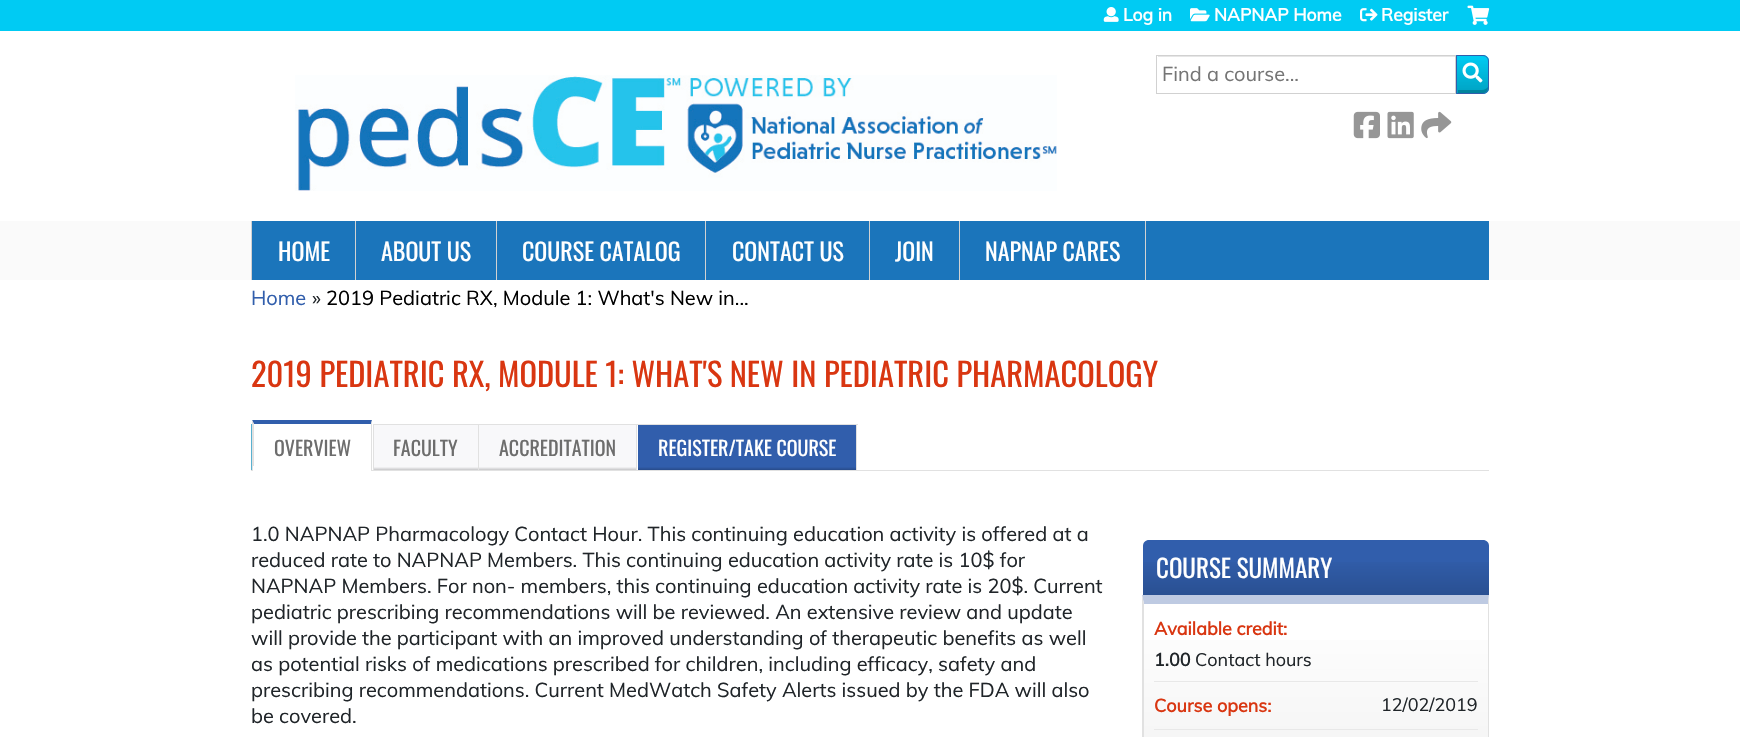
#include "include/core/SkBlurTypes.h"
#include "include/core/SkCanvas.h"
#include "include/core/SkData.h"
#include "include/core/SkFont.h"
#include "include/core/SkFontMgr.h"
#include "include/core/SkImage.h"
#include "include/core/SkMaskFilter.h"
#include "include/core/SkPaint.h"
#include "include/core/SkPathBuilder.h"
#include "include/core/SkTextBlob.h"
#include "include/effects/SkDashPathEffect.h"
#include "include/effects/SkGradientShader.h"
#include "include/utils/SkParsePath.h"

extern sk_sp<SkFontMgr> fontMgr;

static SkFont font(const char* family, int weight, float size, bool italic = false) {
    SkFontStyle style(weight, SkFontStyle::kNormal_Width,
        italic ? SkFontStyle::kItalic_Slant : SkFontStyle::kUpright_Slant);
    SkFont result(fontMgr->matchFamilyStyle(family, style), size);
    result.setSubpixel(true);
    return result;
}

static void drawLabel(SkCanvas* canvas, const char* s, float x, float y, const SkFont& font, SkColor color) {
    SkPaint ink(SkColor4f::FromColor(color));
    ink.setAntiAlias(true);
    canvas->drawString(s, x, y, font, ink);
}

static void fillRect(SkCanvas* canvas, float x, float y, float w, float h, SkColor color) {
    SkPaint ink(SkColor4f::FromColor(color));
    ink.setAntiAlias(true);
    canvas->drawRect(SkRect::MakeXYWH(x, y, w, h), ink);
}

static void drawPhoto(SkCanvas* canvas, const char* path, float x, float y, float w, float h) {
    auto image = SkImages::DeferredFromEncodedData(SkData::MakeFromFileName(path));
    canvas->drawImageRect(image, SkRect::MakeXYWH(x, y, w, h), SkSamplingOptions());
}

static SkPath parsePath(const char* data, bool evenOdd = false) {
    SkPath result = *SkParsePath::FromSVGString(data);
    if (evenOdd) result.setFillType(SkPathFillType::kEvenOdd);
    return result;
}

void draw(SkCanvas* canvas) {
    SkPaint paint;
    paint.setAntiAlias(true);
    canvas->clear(0xFFFFFFFF);
    fillRect(canvas, 0, 0, 1740, 31, 0xFF00CBF3);
    drawPhoto(canvas, "assets/img1.png", 1103, 7, 16, 15);
    SkFont font1 = font("Muli", 700, 17.5f);
    drawLabel(canvas, "Log in", 1123, 21, font1, 0xFFFFFFFF);
    drawPhoto(canvas, "assets/img2.png", 1190, 8, 20, 14);
    drawLabel(canvas, "NAPNAP Home", 1214, 21, font1, 0xFFFFFFFF);
    drawPhoto(canvas, "assets/img3.png", 1360, 8, 18, 14);
    drawLabel(canvas, "Register", 1381, 21, font1, 0xFFFFFFFF);
    drawPhoto(canvas, "assets/img4.png", 1467, 5, 23, 20);
    paint.setColor(0xFF00CBF3);
    canvas->drawPath(parsePath("M1456 55H1483C1486.5 55 1489 57.5 1489 61V88C1489 91.5 1486.5 94 1483 94H1456Z"), paint);
    canvas->save();
    canvas->clipPath(parsePath("M1456 55H1483C1486.5 55 1489 57.5 1489 61V88C1489 91.5 1486.5 94 1483 94H1456Z"), true);
    {
        const SkColor colors[] = {0x33000000, 0x00000000};
        const float stops[] = {0, 1};
        const SkPoint ends[] = {{1473, 93}, {1473, 56}};
        paint.setShader(SkGradientShader::MakeLinear(ends, colors, stops, 2, SkTileMode::kClamp));
        paint.setAlpha(255);
    }
    canvas->drawRect(SkRect::MakeXYWH(1457, 60, 32, 33), paint);
    canvas->restore();
    paint.setShader(nullptr);
    paint.setColor(0x33000000);
    canvas->drawPath(parsePath("M1458 90V93H1474.5C1480.5 93 1488 95 1488 87C1487 88.5 1484.5 90 1482 90Z"), paint);
    paint.setStroke(true);
    paint.setStrokeWidth(1);
    paint.setColor(0xFF315EAC);
    canvas->drawPath(parsePath("M1456.5 55.5H1483C1486 55.5 1488.5 58 1488.5 61V88C1488.5 91 1486 93.5 1483 93.5H1456.5Z"), paint);
    fillRect(canvas, 1158, 56, 297, 1, 0xFFE6E6E6);
    paint.setColor(0xFFD1D1D1);
    canvas->drawRect(SkRect::MakeXYWH(1156.5f, 55.5f, 299, 38), paint);
    SkFont font2 = font("Muli", 400, 20);
    drawLabel(canvas, "Find a course...", 1162, 81, font2, 0xFF757575);
    drawPhoto(canvas, "assets/img5.png", 1462, 62, 21, 21);
    drawPhoto(canvas, "assets/img6.png", 1353, 111, 27, 28);
    drawPhoto(canvas, "assets/img7.png", 1387, 111, 27, 28);
    drawPhoto(canvas, "assets/img8.png", 1421, 111, 31, 28);
    drawPhoto(canvas, "assets/img9.png", 295, 75, 762, 116);
    fillRect(canvas, 0, 221, 1740, 59, 0xFFFAFAFA);
    fillRect(canvas, 252, 221, 1237, 59, 0xFF1B75BB);
    fillRect(canvas, 355, 221, 1, 59, 0xFFD2D2D2);
    fillRect(canvas, 251, 221, 1, 59, 0xFFD2D2D2);
    SkFont font3 = font("Oswald", 400, 24);
    drawLabel(canvas, "HOME", 278, 261, font3, 0xFFFFFFFF);
    fillRect(canvas, 496, 221, 1, 59, 0xFFD2D2D2);
    drawLabel(canvas, "ABOUT US", 381, 261, font3, 0xFFFFFFFF);
    fillRect(canvas, 705, 221, 1, 59, 0xFFD2D2D2);
    drawLabel(canvas, "COURSE CATALOG", 522, 261, font3, 0xFFFFFFFF);
    fillRect(canvas, 869, 221, 1, 59, 0xFFD2D2D2);
    drawLabel(canvas, "CONTACT US", 732, 261, font3, 0xFFFFFFFF);
    fillRect(canvas, 959, 221, 1, 59, 0xFFD2D2D2);
    drawLabel(canvas, "JOIN", 895, 261, font3, 0xFFFFFFFF);
    fillRect(canvas, 1145, 221, 1, 59, 0xFFD2D2D2);
    drawLabel(canvas, "NAPNAP CARES", 985, 261, font3, 0xFFFFFFFF);
    drawLabel(canvas, "Home", 251, 305, font2, 0xFF315EAC);
    drawLabel(canvas, "»", 312, 305, font2, 0xFF202529);
    drawLabel(canvas, "2019 Pediatric RX, Module 1: What's New in...", 326, 305, font2, 0xFF000000);
    SkFont font4 = font("Oswald", 400, 32.5f);
    drawLabel(canvas, "2019 PEDIATRIC RX, MODULE 1: WHAT'S NEW IN PEDIATRIC PHARMACOLOGY", 251, 387, font4, 0xFFD93611);
    fillRect(canvas, 251, 470, 1238, 1, 0xFFE1E1E1);
    fillRect(canvas, 251, 424, 1, 46, 0xFF5AB1D0);
    paint.setStroke(false);
    paint.setColor(0xFF315EAC);
    canvas->drawPath(parsePath("M252 420H372L371 424H254Z"), paint);
    paint.setColor(0xFFE1E1E1);
    canvas->drawPath(parsePath("M372 420V470H371V424Z"), paint);
    canvas->drawPath(parsePath("M252 470V420L254 424V470Z"), paint);
    SkFont font5 = font("Oswald", 400, 20);
    drawLabel(canvas, "OVERVIEW", 274, 456, font5, 0xFF6D6D6D);
    fillRect(canvas, 253, 466, 118, 5, 0xFFFFFFFF);
    {
        const SkColor colors[] = {0xFFC6C6C8, 0xFFF8F8FA};
        const float stops[] = {0, 0.07f};
        const SkPoint ends[] = {{426, 470}, {426, 425}};
        paint.setShader(SkGradientShader::MakeLinear(ends, colors, stops, 2, SkTileMode::kClamp));
        paint.setAlpha(255);
    }
    canvas->drawRect(SkRect::MakeXYWH(374, 425, 104, 45), paint);
    fillRect(canvas, 373, 424, 106, 1, 0xFFE1E1E1);
    fillRect(canvas, 478, 424, 1, 46, 0xFFE1E1E1);
    fillRect(canvas, 373, 424, 1, 46, 0xFFE1E1E1);
    drawLabel(canvas, "FACULTY", 393, 456, font5, 0xFF6D6D6D);
    {
        const SkColor colors[] = {0xFFC6C6C8, 0xFFF8F8FA};
        const float stops[] = {0, 0.07f};
        const SkPoint ends[] = {{558, 470}, {558, 425}};
        paint.setShader(SkGradientShader::MakeLinear(ends, colors, stops, 2, SkTileMode::kClamp));
        paint.setAlpha(255);
    }
    canvas->drawRect(SkRect::MakeXYWH(479, 425, 157, 45), paint);
    fillRect(canvas, 478, 424, 160, 1, 0xFFE1E1E1);
    fillRect(canvas, 636, 424, 1, 46, 0xFFE1E1E1);
    drawLabel(canvas, "ACCREDITATION", 499, 456, font5, 0xFF6D6D6D);
    {
        const SkColor colors[] = {0xFF274B8A, 0xFF315EAC};
        const float stops[] = {0, 0.07f};
        const SkPoint ends[] = {{747, 470}, {747, 425}};
        paint.setShader(SkGradientShader::MakeLinear(ends, colors, stops, 2, SkTileMode::kClamp));
        paint.setAlpha(255);
    }
    canvas->drawRect(SkRect::MakeXYWH(638, 425, 218, 45), paint);
    fillRect(canvas, 636, 424, 222, 1, 0xFFE1E1E1);
    fillRect(canvas, 856, 424, 1, 46, 0xFFE1E1E1);
    drawLabel(canvas, "REGISTER/TAKE COURSE", 658, 456, font5, 0xFFFFFFFF);
    drawLabel(canvas, "1.0 NAPNAP Pharmacology Contact Hour. This continuing education activity is offered at a", 251, 541, font2, 0xFF202529);
    drawLabel(canvas, "reduced rate to NAPNAP Members. This continuing education activity rate is 10$ for", 251, 567, font2, 0xFF202529);
    drawLabel(canvas, "NAPNAP Members. For non- members, this continuing education activity rate is 20$. Current", 251, 593, font2, 0xFF202529);
    drawLabel(canvas, "pediatric prescribing recommendations will be reviewed. An extensive review and update", 251, 619, font2, 0xFF202529);
    drawLabel(canvas, "will provide the participant with an improved understanding of therapeutic benefits as well", 251, 645, font2, 0xFF202529);
    drawLabel(canvas, "as potential risks of medications prescribed for children, including efficacy, safety and", 251, 671, font2, 0xFF202529);
    drawLabel(canvas, "prescribing recommendations. Current MedWatch Safety Alerts issued by the FDA will also", 251, 697, font2, 0xFF202529);
    drawLabel(canvas, "be covered.", 251, 723, font2, 0xFF202529);
    paint.setShader(nullptr);
    paint.setColor(0xFF315EAC);
    canvas->drawPath(parsePath("M1149 540H1483C1486.5 540 1489 542.5 1489 546V595H1143V546C1143 542.5 1145.5 540 1149 540Z"), paint);
    {
        const SkColor colors[] = {0x26000000, 0x00000000};
        const float stops[] = {0, 0.7f};
        const SkPoint ends[] = {{1316, 595}, {1316, 540}};
        paint.setShader(SkGradientShader::MakeLinear(ends, colors, stops, 2, SkTileMode::kClamp));
        paint.setAlpha(255);
    }
    canvas->drawRect(SkRect::MakeXYWH(1143, 562, 346, 33), paint);
    SkFont font6 = font("Oswald", 400, 25);
    drawLabel(canvas, "COURSE SUMMARY", 1156, 578, font6, 0xFFFFFFFF);
    {
        const SkColor colors[] = {0xFFEEEEEE, 0xFFFFFFFF};
        const float stops[] = {0, 1};
        const SkPoint ends[] = {{1316, 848}, {1316, 604}};
        paint.setShader(SkGradientShader::MakeLinear(ends, colors, stops, 2, SkTileMode::kClamp));
        paint.setAlpha(255);
    }
    canvas->drawRect(SkRect::MakeXYWH(1144, 640, 344, 97), paint);
    paint.setShader(nullptr);
    paint.setColor(0xFFBECAE2);
    canvas->drawPath(parsePath("M1142 595H1489L1488 604H1144Z"), paint);
    paint.setColor(0xFFE1E1E1);
    canvas->drawPath(parsePath("M1489 595V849L1488 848V604Z"), paint);
    canvas->drawPath(parsePath("M1142 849V595L1144 604V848Z"), paint);
    fillRect(canvas, 1154, 681, 324, 1, 0xFFE8E8E8);
    SkFont font7 = font("Muli", 700, 18);
    drawLabel(canvas, "Available credit:", 1154, 635, font7, 0xFFD93611);
    drawLabel(canvas, "1.00", 1154, 666, font7, 0xFF202529);
    SkFont font8 = font("Muli", 400, 18);
    drawLabel(canvas, "Contact hours", 1195, 666, font8, 0xFF202529);
    fillRect(canvas, 1154, 729, 324, 1, 0xFFE8E8E8);
    drawLabel(canvas, "Course opens:", 1154, 712, font7, 0xFFD93611);
    drawLabel(canvas, "12/02/2019", 1381, 711, font8, 0xFF202529);
}
